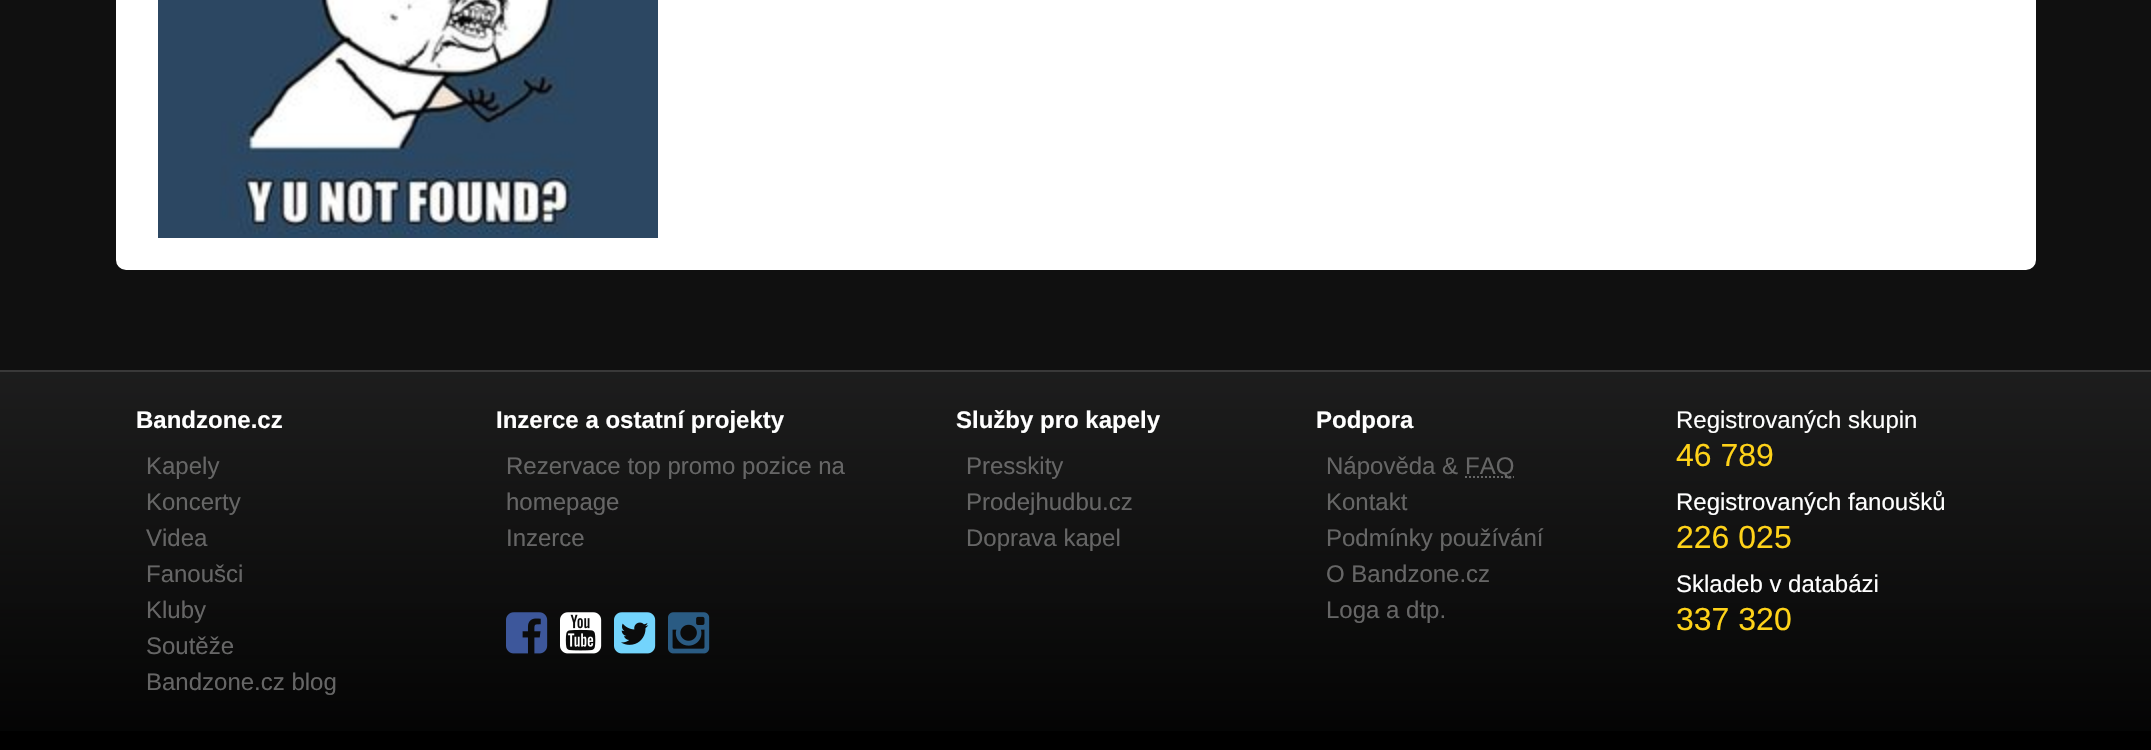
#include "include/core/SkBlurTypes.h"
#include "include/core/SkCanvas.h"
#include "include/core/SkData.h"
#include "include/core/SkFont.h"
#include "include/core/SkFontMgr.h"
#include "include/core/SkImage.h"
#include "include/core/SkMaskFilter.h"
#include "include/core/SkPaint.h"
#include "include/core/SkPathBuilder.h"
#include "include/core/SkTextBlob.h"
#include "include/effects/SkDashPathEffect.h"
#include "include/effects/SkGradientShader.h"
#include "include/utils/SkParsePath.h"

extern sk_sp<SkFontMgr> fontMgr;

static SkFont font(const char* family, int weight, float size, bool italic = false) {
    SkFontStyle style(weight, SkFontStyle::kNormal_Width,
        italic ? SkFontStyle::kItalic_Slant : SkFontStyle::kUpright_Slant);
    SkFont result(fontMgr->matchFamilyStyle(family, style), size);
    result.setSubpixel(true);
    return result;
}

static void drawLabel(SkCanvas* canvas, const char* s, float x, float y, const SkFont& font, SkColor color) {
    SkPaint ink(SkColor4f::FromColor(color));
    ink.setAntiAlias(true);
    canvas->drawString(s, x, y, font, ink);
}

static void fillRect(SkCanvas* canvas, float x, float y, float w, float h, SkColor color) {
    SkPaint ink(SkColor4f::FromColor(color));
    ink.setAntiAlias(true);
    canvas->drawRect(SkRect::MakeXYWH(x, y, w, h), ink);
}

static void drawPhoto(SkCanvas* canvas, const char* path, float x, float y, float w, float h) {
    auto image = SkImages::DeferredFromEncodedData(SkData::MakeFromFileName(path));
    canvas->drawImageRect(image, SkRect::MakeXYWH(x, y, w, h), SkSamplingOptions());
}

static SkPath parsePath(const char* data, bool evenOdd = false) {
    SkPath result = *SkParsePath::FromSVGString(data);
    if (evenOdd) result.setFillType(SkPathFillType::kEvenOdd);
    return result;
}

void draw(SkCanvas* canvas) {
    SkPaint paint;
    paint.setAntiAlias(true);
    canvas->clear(0xFF101010);
    paint.setColor(0xFFFFFFFF);
    canvas->drawRoundRect(SkRect::MakeXYWH(117, -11, 1918, 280), 9, 9, paint);
    paint.setStroke(true);
    paint.setStrokeWidth(2);
    canvas->drawRoundRect(SkRect::MakeXYWH(117, -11, 1918, 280), 9, 9, paint);
    drawPhoto(canvas, "assets/img1.png", 158, 0, 500, 238);
    fillRect(canvas, 0, 731, 2151, 19, 0xFF000000);
    drawPhoto(canvas, "assets/img2.png", 0, 372, 2151, 359);
    fillRect(canvas, 0, 370, 2151, 2, 0xFF393939);
    SkFont font1 = font("Liberation Sans", 700, 24);
    drawLabel(canvas, "Bandzone.cz", 136, 428, font1, 0xFFFFFFFF);
    SkFont font2 = font("Liberation Sans", 400, 24);
    drawLabel(canvas, "Kapely", 146, 474, font2, 0xFF666666);
    drawLabel(canvas, "Koncerty", 146, 510, font2, 0xFF666666);
    drawLabel(canvas, "Videa", 146, 546, font2, 0xFF666666);
    drawLabel(canvas, "Fanoušci", 146, 582, font2, 0xFF666666);
    drawLabel(canvas, "Kluby", 146, 618, font2, 0xFF666666);
    drawLabel(canvas, "Soutěže", 146, 654, font2, 0xFF666666);
    drawLabel(canvas, "Bandzone.cz blog", 146, 690, font2, 0xFF666666);
    drawLabel(canvas, "Inzerce a ostatní projekty", 496, 428, font1, 0xFFFFFFFF);
    drawLabel(canvas, "Rezervace top promo pozice na", 506, 474, font2, 0xFF666666);
    drawLabel(canvas, "homepage", 506, 510, font2, 0xFF666666);
    drawLabel(canvas, "Inzerce", 506, 546, font2, 0xFF666666);
    drawPhoto(canvas, "assets/img3.png", 506, 612, 42, 42);
    drawPhoto(canvas, "assets/img4.png", 560, 612, 42, 42);
    drawPhoto(canvas, "assets/img5.png", 614, 612, 42, 42);
    drawPhoto(canvas, "assets/img6.png", 668, 612, 42, 42);
    drawLabel(canvas, "Služby pro kapely", 956, 428, font1, 0xFFFFFFFF);
    drawLabel(canvas, "Presskity", 966, 474, font2, 0xFF666666);
    drawLabel(canvas, "Prodejhudbu.cz", 966, 510, font2, 0xFF666666);
    drawLabel(canvas, "Doprava kapel", 966, 546, font2, 0xFF666666);
    drawLabel(canvas, "Podpora", 1316, 428, font1, 0xFFFFFFFF);
    drawLabel(canvas, "Nápověda &", 1326, 474, font2, 0xFF666666);
    paint.setColor(0xFF666666);
    paint.setPathEffect(SkDashPathEffect::Make({{2, 2}}, 0));
    canvas->drawPath(parsePath("M1465 477H1514"), paint);
    paint.setPathEffect(nullptr);
    drawLabel(canvas, "FAQ", 1465, 474, font2, 0xFF666666);
    drawLabel(canvas, "Kontakt", 1326, 510, font2, 0xFF666666);
    drawLabel(canvas, "Podmínky používání", 1326, 546, font2, 0xFF666666);
    drawLabel(canvas, "O Bandzone.cz", 1326, 582, font2, 0xFF666666);
    drawLabel(canvas, "Loga a dtp.", 1326, 618, font2, 0xFF666666);
    drawLabel(canvas, "Registrovaných skupin", 1676, 428, font2, 0xFFFFFFFF);
    SkFont font3 = font("Liberation Sans", 400, 32);
    drawLabel(canvas, "46 789", 1676, 466, font3, 0xFFFED219);
    drawLabel(canvas, "Registrovaných fanoušků", 1676, 510, font2, 0xFFFFFFFF);
    drawLabel(canvas, "226 025", 1676, 548, font3, 0xFFFED219);
    drawLabel(canvas, "Skladeb v databázi", 1676, 592, font2, 0xFFFFFFFF);
    drawLabel(canvas, "337 320", 1676, 630, font3, 0xFFFED219);
}
